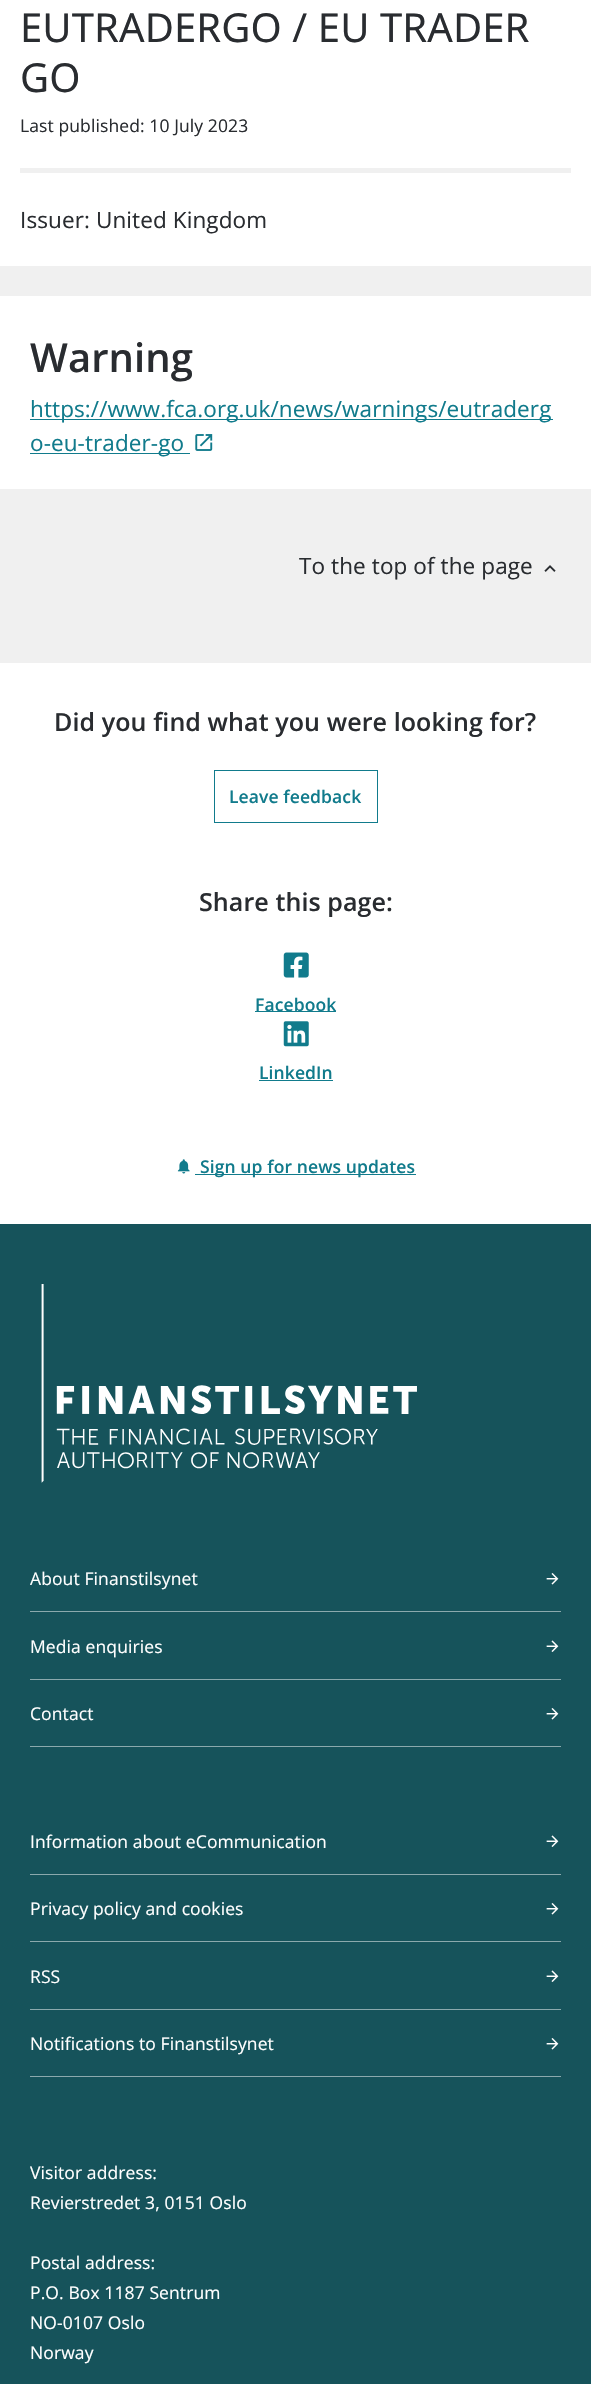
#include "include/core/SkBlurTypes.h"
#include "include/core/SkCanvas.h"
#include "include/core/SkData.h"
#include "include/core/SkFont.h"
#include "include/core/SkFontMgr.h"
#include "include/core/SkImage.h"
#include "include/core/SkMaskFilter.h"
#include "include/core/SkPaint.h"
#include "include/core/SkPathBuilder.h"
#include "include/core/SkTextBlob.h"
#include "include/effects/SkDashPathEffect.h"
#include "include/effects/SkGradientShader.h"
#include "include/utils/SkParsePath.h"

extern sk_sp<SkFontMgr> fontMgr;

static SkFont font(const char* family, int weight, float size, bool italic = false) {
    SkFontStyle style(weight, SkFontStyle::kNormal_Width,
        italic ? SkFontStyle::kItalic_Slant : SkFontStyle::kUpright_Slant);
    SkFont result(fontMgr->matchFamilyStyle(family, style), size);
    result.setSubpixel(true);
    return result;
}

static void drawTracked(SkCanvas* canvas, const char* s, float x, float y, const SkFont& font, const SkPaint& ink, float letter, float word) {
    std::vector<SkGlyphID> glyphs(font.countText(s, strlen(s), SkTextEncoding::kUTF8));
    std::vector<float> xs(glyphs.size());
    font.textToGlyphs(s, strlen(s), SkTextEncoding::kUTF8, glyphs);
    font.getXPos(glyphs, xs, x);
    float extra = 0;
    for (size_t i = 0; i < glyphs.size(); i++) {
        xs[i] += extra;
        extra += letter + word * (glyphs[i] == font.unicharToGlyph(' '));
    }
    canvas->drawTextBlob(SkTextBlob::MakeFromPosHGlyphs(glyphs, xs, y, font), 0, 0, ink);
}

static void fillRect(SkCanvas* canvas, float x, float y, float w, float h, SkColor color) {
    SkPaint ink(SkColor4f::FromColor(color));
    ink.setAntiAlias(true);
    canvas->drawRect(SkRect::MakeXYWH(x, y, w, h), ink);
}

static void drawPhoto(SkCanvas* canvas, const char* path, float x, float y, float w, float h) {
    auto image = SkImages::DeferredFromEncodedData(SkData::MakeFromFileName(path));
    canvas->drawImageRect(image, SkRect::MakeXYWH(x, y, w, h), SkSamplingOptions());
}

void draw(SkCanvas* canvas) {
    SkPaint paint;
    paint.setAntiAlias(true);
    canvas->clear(0xFFF0F0F0);
    fillRect(canvas, 0, 0, 591, 266, 0xFFFFFFFF);
    SkFont font1 = font("Noto Sans", 400, 40);
    paint.setColor(0xFF292C30);
    drawTracked(canvas, "EUTRADERGO / EU TRADER", 20, 42, font1, paint, 0.1f, 0);
    drawTracked(canvas, "GO", 20, 92, font1, paint, 0.1f, 0);
    SkFont font2 = font("Open Sans", 400, 17.5f);
    drawTracked(canvas, "Last published: 10 July 2023", 20, 132, font2, paint, 0.1f, 0);
    fillRect(canvas, 20, 168, 551, 5, 0xFFF0F0F0);
    SkFont font3 = font("Open Sans", 400, 22.5f);
    drawTracked(canvas, "Issuer: United Kingdom", 20, 228, font3, paint, 0.1f, 0);
    fillRect(canvas, 0, 296, 591, 193, 0xFFFFFFFF);
    SkFont font4 = font("Open Sans", 600, 40);
    drawTracked(canvas, "Warning", 30, 372, font4, paint, 0.1f, 0);
    fillRect(canvas, 30, 419, 523, 1, 0xFF117B8C);
    paint.setColor(0xFF117B8C);
    drawTracked(canvas, "https://www.fca.org.uk/news/warnings/eutraderg", 30, 417, font3, paint, 0.1f, 0);
    fillRect(canvas, 30, 453, 160, 1, 0xFF117B8C);
    drawTracked(canvas, "o-eu-trader-go", 30, 451, font3, paint, 0.1f, 0);
    drawPhoto(canvas, "assets/img1.png", 195, 434, 18, 17);
    paint.setColor(0xFF292C30);
    drawTracked(canvas, "To the top of the page", 299, 574, font3, paint, 0.1f, 0);
    drawPhoto(canvas, "assets/img2.png", 544, 565, 12, 7);
    fillRect(canvas, 0, 663, 591, 561, 0xFFFFFFFF);
    SkFont font5 = font("Open Sans", 600, 25);
    drawTracked(canvas, "Did you find what you were looking for?", 54, 731, font5, paint, 0.1f, 0);
    paint.setStroke(true);
    paint.setStrokeWidth(1);
    paint.setColor(0xFF117B8C);
    canvas->drawRect(SkRect::MakeXYWH(214.5f, 770.5f, 163, 52), paint);
    SkFont font6 = font("Open Sans", 600, 17.5f);
    paint.setStroke(false);
    drawTracked(canvas, "Leave feedback", 229, 803, font6, paint, 0.1f, 0);
    paint.setColor(0xFF292C30);
    drawTracked(canvas, "Share this page:", 199, 911, font5, paint, 0.1f, 0);
    drawPhoto(canvas, "assets/img3.png", 283, 952, 26, 26);
    fillRect(canvas, 255, 1011, 81, 1, 0xFF117B8C);
    paint.setColor(0xFF117B8C);
    drawTracked(canvas, "Facebook", 255, 1011, font6, paint, 0.1f, 0);
    drawPhoto(canvas, "assets/img4.png", 283, 1021, 26, 26);
    drawTracked(canvas, "LinkedIn", 259, 1079, font6, paint, 0.1f, 0);
    fillRect(canvas, 259, 1080, 74, 1, 0xFF117B8C);
    drawPhoto(canvas, "assets/img5.png", 177, 1159, 13, 15);
    fillRect(canvas, 195, 1174, 221, 1, 0xFF117B8C);
    drawTracked(canvas, "Sign up for news updates", 200, 1173, font6, paint, 0.1f, 0);
    fillRect(canvas, 0, 1224, 591, 1160, 0xFF16535B);
    drawPhoto(canvas, "assets/img6.png", 41, 1284, 376, 199);
    fillRect(canvas, 30, 1611, 531, 1, 0xFF8BA9AD);
    paint.setColor(0xFFFFFFFF);
    drawTracked(canvas, "About Finanstilsynet", 30, 1585, font2, paint, 0.1f, 0);
    drawPhoto(canvas, "assets/img7.png", 546, 1573, 13, 12);
    fillRect(canvas, 30, 1679, 531, 1, 0xFF8BA9AD);
    drawTracked(canvas, "Media enquiries", 30, 1653, font2, paint, 0.1f, 0);
    drawPhoto(canvas, "assets/img8.png", 546, 1640, 13, 12);
    fillRect(canvas, 30, 1746, 531, 1, 0xFF8BA9AD);
    drawTracked(canvas, "Contact", 30, 1720, font2, paint, 0.1f, 0);
    drawPhoto(canvas, "assets/img7.png", 546, 1708, 13, 12);
    fillRect(canvas, 30, 1874, 531, 1, 0xFF8BA9AD);
    drawTracked(canvas, "Information about eCommunication", 30, 1848, font2, paint, 0.1f, 0);
    drawPhoto(canvas, "assets/img8.png", 546, 1835, 13, 12);
    fillRect(canvas, 30, 1941, 531, 1, 0xFF8BA9AD);
    drawTracked(canvas, "Privacy policy and cookies", 30, 1915, font2, paint, 0.1f, 0);
    drawPhoto(canvas, "assets/img7.png", 546, 1903, 13, 12);
    fillRect(canvas, 30, 2009, 531, 1, 0xFF8BA9AD);
    drawTracked(canvas, "RSS", 30, 1983, font2, paint, 0.1f, 0);
    drawPhoto(canvas, "assets/img8.png", 546, 1970, 13, 12);
    fillRect(canvas, 30, 2076, 531, 1, 0xFF8BA9AD);
    drawTracked(canvas, "Notifications to Finanstilsynet", 30, 2050, font2, paint, 0.1f, 0);
    drawPhoto(canvas, "assets/img7.png", 546, 2038, 13, 12);
    drawTracked(canvas, "Visitor address:", 30, 2179, font2, paint, 0.1f, 0);
    drawTracked(canvas, "Revierstredet 3, 0151 Oslo", 30, 2209, font2, paint, 0.1f, 0);
    drawTracked(canvas, "Postal address:", 30, 2269, font2, paint, 0.1f, 0);
    drawTracked(canvas, "P.O. Box 1187 Sentrum", 30, 2299, font2, paint, 0.1f, 0);
    drawTracked(canvas, "NO-0107 Oslo", 30, 2329, font2, paint, 0.1f, 0);
    drawTracked(canvas, "Norway", 30, 2359, font2, paint, 0.1f, 0);
}
